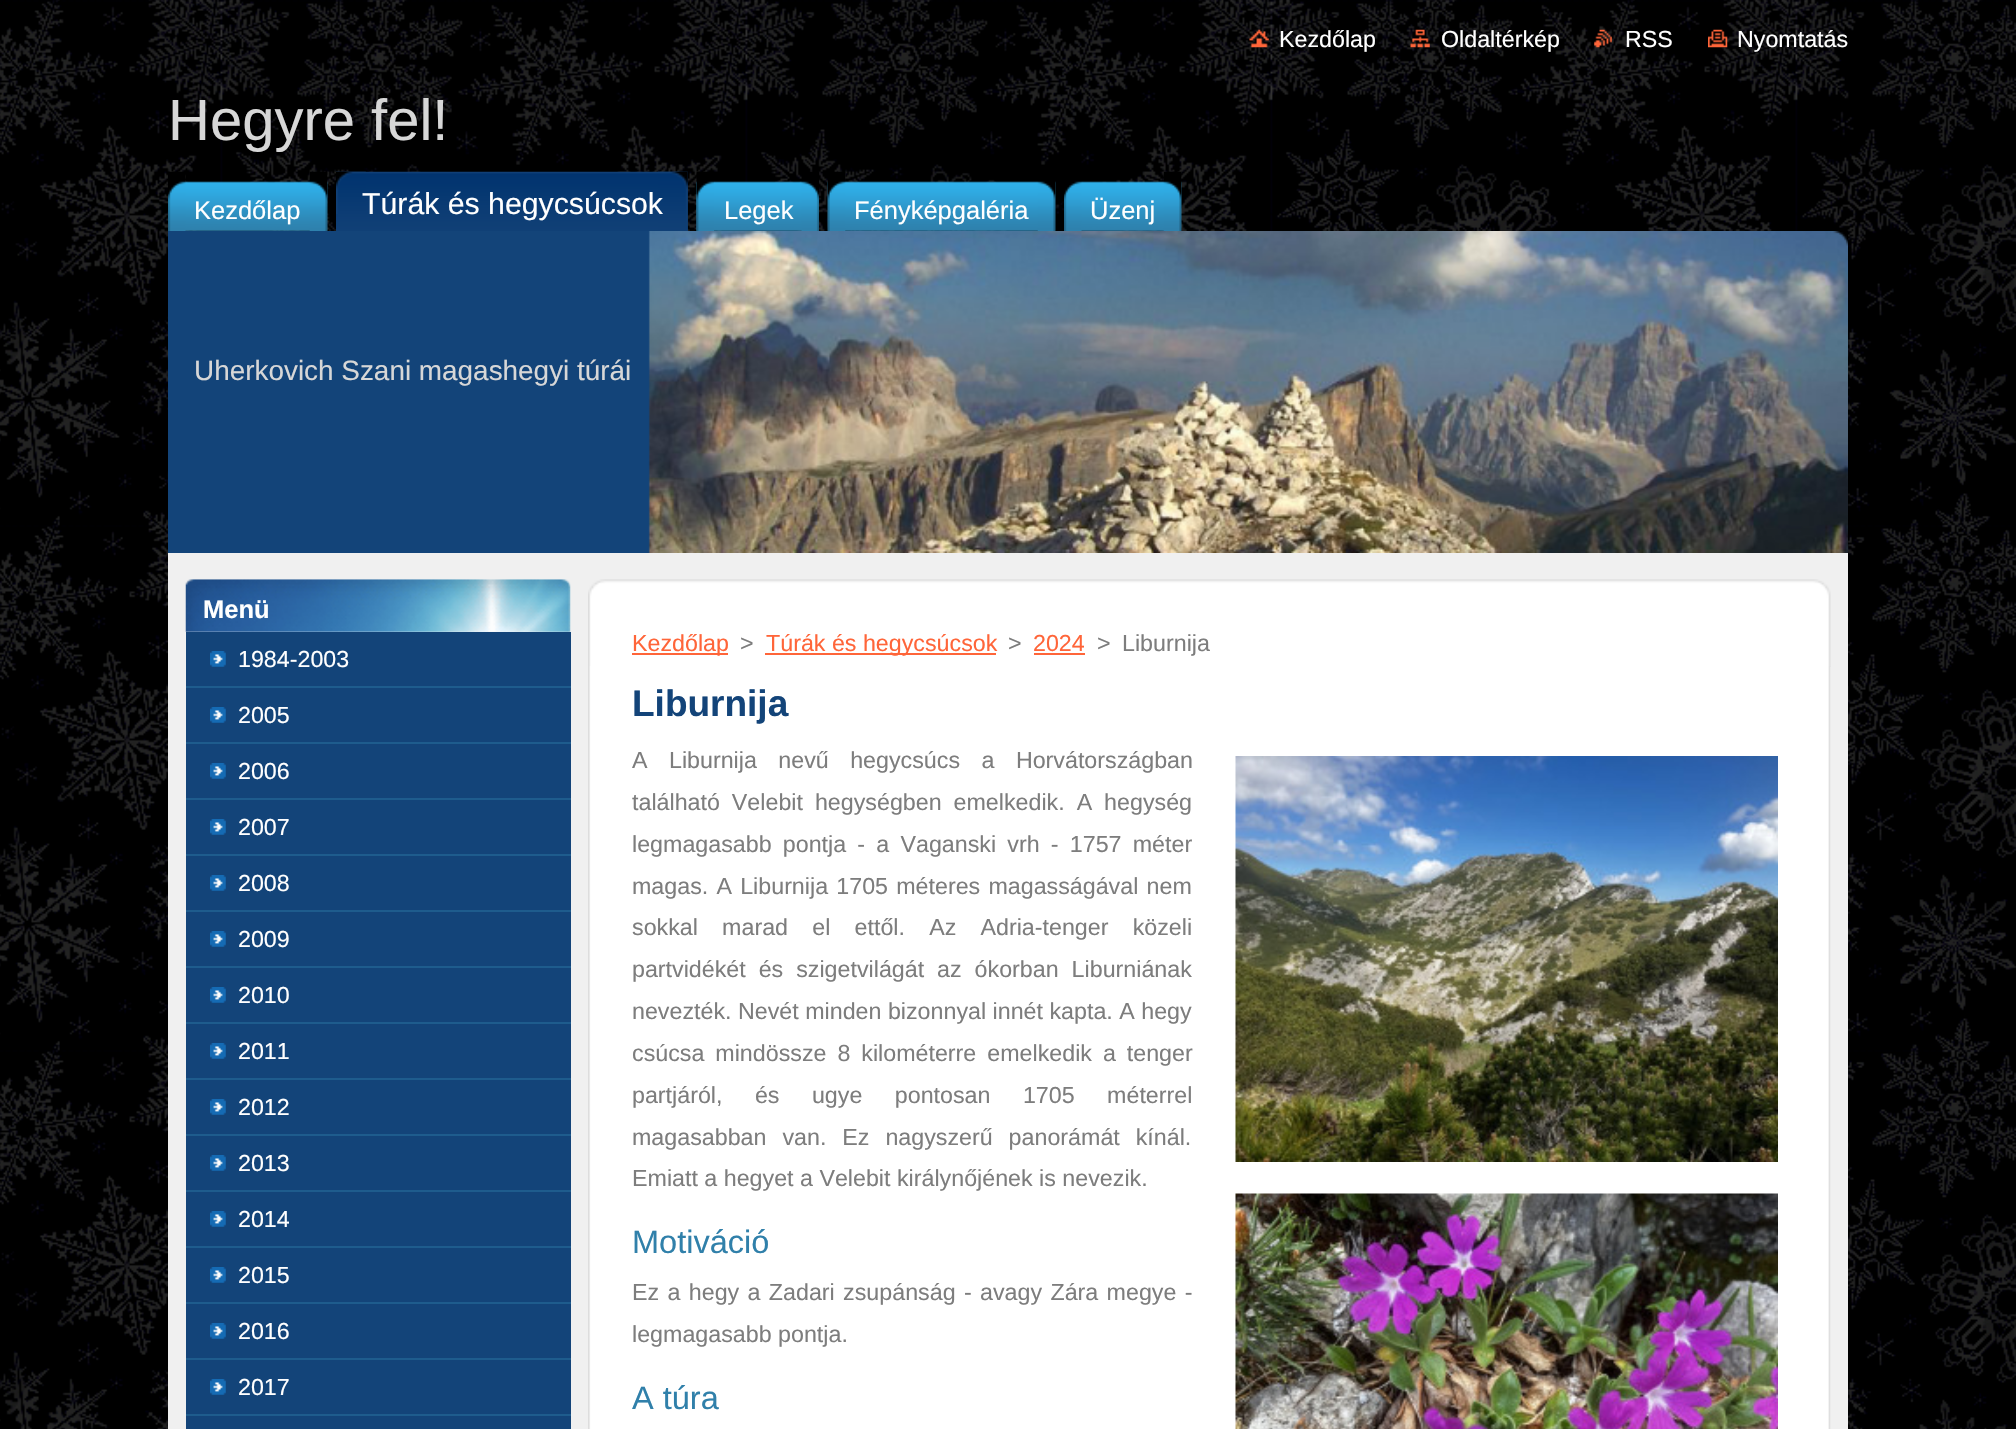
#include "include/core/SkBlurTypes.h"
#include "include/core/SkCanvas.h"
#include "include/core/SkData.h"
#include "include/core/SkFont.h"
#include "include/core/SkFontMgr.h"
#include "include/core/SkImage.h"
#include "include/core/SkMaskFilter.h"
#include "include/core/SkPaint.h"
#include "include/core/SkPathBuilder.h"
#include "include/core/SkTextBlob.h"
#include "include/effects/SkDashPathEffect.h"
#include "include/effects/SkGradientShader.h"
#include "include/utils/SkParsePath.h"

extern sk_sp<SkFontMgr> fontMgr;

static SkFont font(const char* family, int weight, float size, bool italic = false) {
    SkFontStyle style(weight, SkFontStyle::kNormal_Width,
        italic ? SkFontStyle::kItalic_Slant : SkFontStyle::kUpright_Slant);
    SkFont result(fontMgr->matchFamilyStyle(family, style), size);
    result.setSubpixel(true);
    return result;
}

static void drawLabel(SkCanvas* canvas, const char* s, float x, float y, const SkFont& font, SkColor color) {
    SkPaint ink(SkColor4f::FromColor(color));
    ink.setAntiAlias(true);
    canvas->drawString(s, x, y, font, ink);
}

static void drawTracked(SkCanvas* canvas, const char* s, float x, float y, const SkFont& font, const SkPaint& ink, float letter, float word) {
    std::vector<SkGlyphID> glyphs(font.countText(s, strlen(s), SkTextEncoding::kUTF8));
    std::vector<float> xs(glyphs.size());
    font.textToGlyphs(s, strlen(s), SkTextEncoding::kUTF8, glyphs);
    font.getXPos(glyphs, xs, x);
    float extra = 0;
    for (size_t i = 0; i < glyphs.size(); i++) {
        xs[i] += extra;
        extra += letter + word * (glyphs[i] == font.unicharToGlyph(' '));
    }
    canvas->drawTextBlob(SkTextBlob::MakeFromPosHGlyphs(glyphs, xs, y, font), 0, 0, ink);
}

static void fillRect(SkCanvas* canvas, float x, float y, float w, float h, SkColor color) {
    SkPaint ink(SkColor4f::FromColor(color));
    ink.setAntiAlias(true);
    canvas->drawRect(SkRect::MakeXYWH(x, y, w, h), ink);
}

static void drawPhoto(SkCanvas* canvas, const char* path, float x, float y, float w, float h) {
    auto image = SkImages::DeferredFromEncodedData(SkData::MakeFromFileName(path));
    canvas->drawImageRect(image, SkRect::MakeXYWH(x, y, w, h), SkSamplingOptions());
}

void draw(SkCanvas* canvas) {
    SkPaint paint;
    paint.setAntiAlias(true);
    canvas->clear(0xFFFFFFFF);
    drawPhoto(canvas, "assets/img1.png", 0, 0, 2016, 1429);
    drawPhoto(canvas, "assets/img2.png", 1249, 29, 20, 19);
    SkFont font1 = font("Liberation Sans", 400, 23.25f);
    drawLabel(canvas, "Kezdőlap", 1279, 47, font1, 0xFFFFFFFF);
    drawPhoto(canvas, "assets/img3.png", 1410, 29, 20, 19);
    drawLabel(canvas, "Oldaltérkép", 1441, 47, font1, 0xFFFFFFFF);
    drawPhoto(canvas, "assets/img4.png", 1594, 29, 18, 19);
    drawLabel(canvas, "RSS", 1625, 47, font1, 0xFFFFFFFF);
    drawPhoto(canvas, "assets/img5.png", 1708, 29, 20, 19);
    drawLabel(canvas, "Nyomtatás", 1737, 47, font1, 0xFFFFFFFF);
    SkFont font2 = font("Liberation Sans", 400, 58);
    drawLabel(canvas, "Hegyre fel!", 168, 140, font2, 0xFFD7D7D7);
    drawPhoto(canvas, "assets/img6.png", 185, 181, 143, 50);
    drawPhoto(canvas, "assets/img7.png", 168, 171, 18, 60);
    drawPhoto(canvas, "assets/img8.png", 309, 171, 19, 60);
    SkFont font3 = font("Liberation Sans", 400, 25.5f);
    drawLabel(canvas, "Kezdőlap", 194, 219, font3, 0xFFFFFFFF);
    drawPhoto(canvas, "assets/img9.png", 336, 171, 352, 60);
    drawPhoto(canvas, "assets/img10.png", 336, 171, 30, 43);
    drawPhoto(canvas, "assets/img11.png", 658, 171, 30, 60);
    SkFont font4 = font("Liberation Sans", 400, 30.25f);
    drawLabel(canvas, "Túrák és hegycsúcsok", 362, 214, font4, 0xFFFFFFFF);
    drawPhoto(canvas, "assets/img12.png", 696, 181, 106, 50);
    drawPhoto(canvas, "assets/img13.png", 696, 171, 18, 60);
    drawPhoto(canvas, "assets/img14.png", 801, 171, 18, 60);
    drawLabel(canvas, "Legek", 724, 219, font3, 0xFFFFFFFF);
    drawPhoto(canvas, "assets/img15.png", 827, 181, 229, 50);
    drawPhoto(canvas, "assets/img16.png", 827, 171, 19, 60);
    drawPhoto(canvas, "assets/img17.png", 1037, 181, 19, 50);
    drawLabel(canvas, "Fényképgaléria", 854, 219, font3, 0xFFFFFFFF);
    drawPhoto(canvas, "assets/img18.png", 1081, 181, 101, 50);
    drawPhoto(canvas, "assets/img19.png", 1064, 181, 18, 50);
    drawPhoto(canvas, "assets/img20.png", 1163, 171, 19, 60);
    drawLabel(canvas, "Üzenj", 1090, 219, font3, 0xFFFFFFFF);
    fillRect(canvas, 168, 231, 482, 322, 0xFF134479);
    drawPhoto(canvas, "assets/img21.png", 648, 231, 1200, 322);
    drawPhoto(canvas, "assets/img22.png", 1833, 231, 15, 15);
    SkFont font5 = font("Liberation Sans", 400, 27.9f);
    drawLabel(canvas, "Uherkovich Szani magashegyi túrái", 194, 380, font5, 0xFFD7D7D7);
    fillRect(canvas, 168, 553, 1680, 876, 0xFFF0F0F0);
    drawPhoto(canvas, "assets/img23.png", 185, 579, 386, 53);
    SkFont font6 = font("Liberation Sans", 700, 25.5f);
    drawLabel(canvas, "Menü", 203, 618, font6, 0xFFFFFFFF);
    fillRect(canvas, 186, 632, 385, 797, 0xFF134479);
    drawPhoto(canvas, "assets/img24.png", 210, 651, 16, 16);
    fillRect(canvas, 186, 686, 385, 2, 0xFF1E5C8D);
    drawLabel(canvas, "1984-2003", 238, 667, font1, 0xFFFFFFFF);
    drawPhoto(canvas, "assets/img24.png", 210, 707, 16, 16);
    fillRect(canvas, 186, 742, 385, 2, 0xFF1E5C8D);
    drawLabel(canvas, "2005", 238, 723, font1, 0xFFFFFFFF);
    drawPhoto(canvas, "assets/img24.png", 210, 763, 16, 16);
    fillRect(canvas, 186, 798, 385, 2, 0xFF1E5C8D);
    drawLabel(canvas, "2006", 238, 779, font1, 0xFFFFFFFF);
    drawPhoto(canvas, "assets/img24.png", 210, 819, 16, 16);
    fillRect(canvas, 186, 854, 385, 2, 0xFF1E5C8D);
    drawLabel(canvas, "2007", 238, 835, font1, 0xFFFFFFFF);
    drawPhoto(canvas, "assets/img24.png", 210, 875, 16, 16);
    fillRect(canvas, 186, 910, 385, 2, 0xFF1E5C8D);
    drawLabel(canvas, "2008", 238, 891, font1, 0xFFFFFFFF);
    drawPhoto(canvas, "assets/img24.png", 210, 931, 16, 16);
    fillRect(canvas, 186, 966, 385, 2, 0xFF1E5C8D);
    drawLabel(canvas, "2009", 238, 947, font1, 0xFFFFFFFF);
    drawPhoto(canvas, "assets/img24.png", 210, 987, 16, 16);
    fillRect(canvas, 186, 1022, 385, 2, 0xFF1E5C8D);
    drawLabel(canvas, "2010", 238, 1003, font1, 0xFFFFFFFF);
    drawPhoto(canvas, "assets/img24.png", 210, 1043, 16, 16);
    fillRect(canvas, 186, 1078, 385, 2, 0xFF1E5C8D);
    drawLabel(canvas, "2011", 238, 1059, font1, 0xFFFFFFFF);
    drawPhoto(canvas, "assets/img24.png", 210, 1099, 16, 16);
    fillRect(canvas, 186, 1134, 385, 2, 0xFF1E5C8D);
    drawLabel(canvas, "2012", 238, 1115, font1, 0xFFFFFFFF);
    drawPhoto(canvas, "assets/img24.png", 210, 1155, 16, 16);
    fillRect(canvas, 186, 1190, 385, 2, 0xFF1E5C8D);
    drawLabel(canvas, "2013", 238, 1171, font1, 0xFFFFFFFF);
    drawPhoto(canvas, "assets/img24.png", 210, 1211, 16, 16);
    fillRect(canvas, 186, 1246, 385, 2, 0xFF1E5C8D);
    drawLabel(canvas, "2014", 238, 1227, font1, 0xFFFFFFFF);
    drawPhoto(canvas, "assets/img24.png", 210, 1267, 16, 16);
    fillRect(canvas, 186, 1302, 385, 2, 0xFF1E5C8D);
    drawLabel(canvas, "2015", 238, 1283, font1, 0xFFFFFFFF);
    drawPhoto(canvas, "assets/img24.png", 210, 1323, 16, 16);
    fillRect(canvas, 186, 1358, 385, 2, 0xFF1E5C8D);
    drawLabel(canvas, "2016", 238, 1339, font1, 0xFFFFFFFF);
    drawPhoto(canvas, "assets/img24.png", 210, 1379, 16, 16);
    fillRect(canvas, 186, 1414, 385, 2, 0xFF1E5C8D);
    drawLabel(canvas, "2017", 238, 1395, font1, 0xFFFFFFFF);
    drawPhoto(canvas, "assets/img25.png", 588, 579, 1243, 88);
    drawPhoto(canvas, "assets/img26.png", 588, 666, 1243, 763);
    fillRect(canvas, 632, 653, 96, 2, 0xFFFF6539);
    drawLabel(canvas, "Kezdőlap", 632, 651, font1, 0xFFFF6539);
    drawLabel(canvas, ">", 740, 651, font1, 0xFF7D7D7D);
    fillRect(canvas, 765, 653, 231, 2, 0xFFFF6539);
    drawLabel(canvas, "Túrák és hegycsúcsok", 766, 651, font1, 0xFFFF6539);
    drawLabel(canvas, ">", 1008, 651, font1, 0xFF7D7D7D);
    drawLabel(canvas, "2024", 1033, 651, font1, 0xFFFF6539);
    fillRect(canvas, 1034, 653, 51, 2, 0xFFFF6539);
    drawLabel(canvas, ">", 1097, 651, font1, 0xFF7D7D7D);
    drawLabel(canvas, "Liburnija", 1122, 651, font1, 0xFF7D7D7D);
    SkFont font7 = font("Liberation Sans", 700, 37);
    drawLabel(canvas, "Liburnija", 632, 716, font7, 0xFF134479);
    paint.setColor(0xFF7D7D7D);
    drawTracked(canvas, "A Liburnija nevű hegycsúcs a Horvátországban", 632, 768, font1, paint, 0, 15);
    drawTracked(canvas, "található Velebit hegységben emelkedik. A hegység", 632, 810, font1, paint, 0, 5.5f);
    drawTracked(canvas, "legmagasabb pontja - a Vaganski vrh - 1757 méter", 632, 852, font1, paint, 0, 4.75f);
    drawTracked(canvas, "magas. A Liburnija 1705 méteres magasságával nem", 632, 894, font1, paint, 0, 1.75f);
    drawTracked(canvas, "sokkal marad el ettől. Az Adria-tenger közeli", 632, 935, font1, paint, 0, 17.75f);
    drawTracked(canvas, "partvidékét és szigetvilágát az ókorban Liburniának", 632, 977, font1, paint, 0, 6.5f);
    drawLabel(canvas, "nevezték. Nevét minden bizonnyal innét kapta. A hegy", 632, 1019, font1, 0xFF7D7D7D);
    drawTracked(canvas, "csúcsa mindössze 8 kilométerre emelkedik a tenger", 632, 1061, font1, paint, 0, 4.5f);
    drawTracked(canvas, "partjáról, és ugye pontosan 1705 méterrel", 632, 1103, font1, paint, 0, 26);
    drawTracked(canvas, "magasabban van. Ez nagyszerű panorámát kínál.", 632, 1145, font1, paint, 0, 9.5f);
    drawLabel(canvas, "Emiatt a hegyet a Velebit királynőjének is nevezik.", 632, 1186, font1, 0xFF7D7D7D);
    SkFont font8 = font("Liberation Sans", 400, 32.5f);
    drawLabel(canvas, "Motiváció", 632, 1253, font8, 0xFF3080AA);
    drawTracked(canvas, "Ez a hegy a Zadari zsupánság - avagy Zára megye -", 632, 1300, font1, paint, 0, 1.9f);
    drawLabel(canvas, "legmagasabb pontja.", 632, 1342, font1, 0xFF7D7D7D);
    drawLabel(canvas, "A túra", 632, 1409, font8, 0xFF3080AA);
    drawPhoto(canvas, "assets/img27.png", 1235, 756, 543, 406);
    drawPhoto(canvas, "assets/img28.png", 1235, 1193, 543, 236);
}
